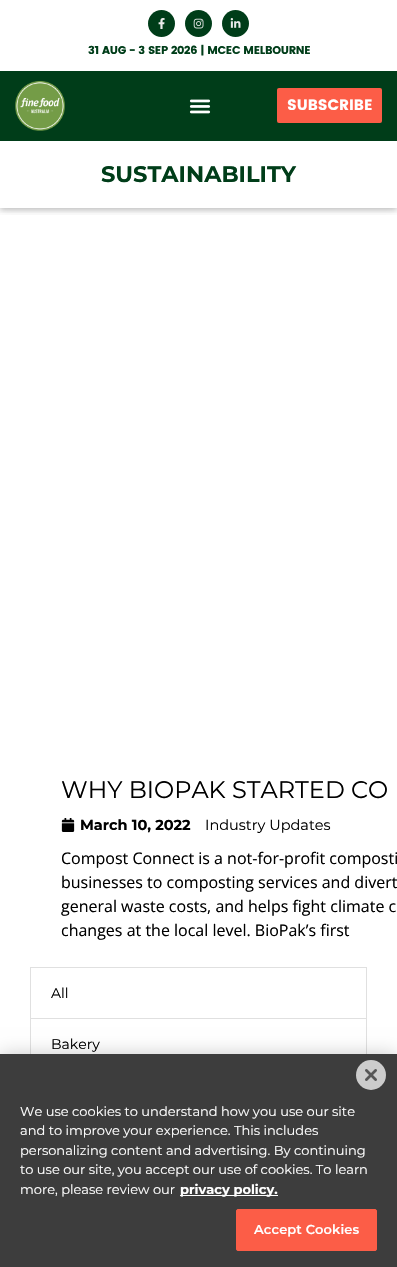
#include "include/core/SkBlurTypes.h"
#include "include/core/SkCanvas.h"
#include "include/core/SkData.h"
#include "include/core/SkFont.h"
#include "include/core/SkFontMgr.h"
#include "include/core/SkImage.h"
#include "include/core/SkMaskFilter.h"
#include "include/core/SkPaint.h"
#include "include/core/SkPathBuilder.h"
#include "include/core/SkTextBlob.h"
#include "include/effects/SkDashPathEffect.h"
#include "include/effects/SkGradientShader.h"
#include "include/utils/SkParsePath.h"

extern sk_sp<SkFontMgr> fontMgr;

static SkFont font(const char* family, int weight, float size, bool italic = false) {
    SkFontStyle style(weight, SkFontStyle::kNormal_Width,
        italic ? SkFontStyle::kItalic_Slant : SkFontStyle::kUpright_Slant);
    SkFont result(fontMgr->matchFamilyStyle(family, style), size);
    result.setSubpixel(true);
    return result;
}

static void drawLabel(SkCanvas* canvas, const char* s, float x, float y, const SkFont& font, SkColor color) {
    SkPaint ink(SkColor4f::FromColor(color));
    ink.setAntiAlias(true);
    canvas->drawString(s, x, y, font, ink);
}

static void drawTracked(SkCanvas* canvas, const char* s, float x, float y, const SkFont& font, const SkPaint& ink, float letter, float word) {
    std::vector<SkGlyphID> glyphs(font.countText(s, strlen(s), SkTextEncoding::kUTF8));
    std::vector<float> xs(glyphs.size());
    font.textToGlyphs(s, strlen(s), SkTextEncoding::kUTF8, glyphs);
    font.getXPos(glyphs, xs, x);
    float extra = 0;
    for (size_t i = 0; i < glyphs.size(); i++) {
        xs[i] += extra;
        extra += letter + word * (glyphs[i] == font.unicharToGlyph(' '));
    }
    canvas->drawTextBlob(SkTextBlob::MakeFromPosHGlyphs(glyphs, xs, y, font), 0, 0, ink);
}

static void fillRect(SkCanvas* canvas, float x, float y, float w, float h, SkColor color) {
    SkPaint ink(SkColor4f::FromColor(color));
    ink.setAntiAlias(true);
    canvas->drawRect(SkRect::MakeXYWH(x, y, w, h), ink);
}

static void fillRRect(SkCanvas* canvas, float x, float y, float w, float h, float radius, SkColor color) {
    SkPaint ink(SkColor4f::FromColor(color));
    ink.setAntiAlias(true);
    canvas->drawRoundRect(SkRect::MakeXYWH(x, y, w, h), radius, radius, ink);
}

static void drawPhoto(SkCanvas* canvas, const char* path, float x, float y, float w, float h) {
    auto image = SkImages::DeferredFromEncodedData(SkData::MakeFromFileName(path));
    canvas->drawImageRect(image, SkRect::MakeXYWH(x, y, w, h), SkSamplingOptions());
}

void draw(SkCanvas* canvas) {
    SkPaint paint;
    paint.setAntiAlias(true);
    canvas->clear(0xFFFFFFFF);
    paint.setColor(0xFF003D19);
    canvas->drawCircle(161.5f, 23.5f, 13.5f, paint);
    drawPhoto(canvas, "assets/img1.png", 158, 18, 7, 11);
    canvas->drawCircle(198.5f, 23.5f, 13.5f, paint);
    drawPhoto(canvas, "assets/img2.png", 193, 18, 11, 11);
    canvas->drawCircle(235.5f, 23.5f, 13.5f, paint);
    drawPhoto(canvas, "assets/img3.png", 230, 18, 11, 10);
    SkFont font1 = font("Poppins", 700, 11.25f);
    drawTracked(canvas, "31 AUG - 3 SEP 2026 | MCEC MELBOURNE", 88, 54, font1, paint, -0.3f, 0);
    canvas->save();
    canvas->clipRect(SkRect::MakeXYWH(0, 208, 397, 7));
    paint.setColor(0x1F000000);
    paint.setMaskFilter(SkMaskFilter::MakeBlur(kNormal_SkBlurStyle, 5));
    canvas->drawRect(SkRect::MakeXYWH(0, 143, 397, 67), paint);
    paint.setMaskFilter(nullptr);
    canvas->restore();
    canvas->save();
    canvas->clipRect(SkRect::MakeXYWH(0, 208, 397, 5));
    paint.setColor(0x29000000);
    paint.setMaskFilter(SkMaskFilter::MakeBlur(kNormal_SkBlurStyle, 2.5f));
    canvas->drawRect(SkRect::MakeXYWH(0, 143, 397, 67), paint);
    paint.setMaskFilter(nullptr);
    canvas->restore();
    fillRect(canvas, 0, 71, 397, 70, 0xFF003D19);
    drawPhoto(canvas, "assets/img4.png", 15, 81, 50, 50);
    drawPhoto(canvas, "assets/img5.png", 189, 99, 22, 15);
    fillRRect(canvas, 277, 88, 105, 35, 2, 0xFFFC5D47);
    SkFont font2 = font("Poppins", 700, 15);
    drawLabel(canvas, "SUBSCRIBE", 287, 110, font2, 0xFFFFFFFF);
    SkFont font3 = font("Montserrat", 700, 22.5f);
    drawLabel(canvas, "SUSTAINABILITY", 101, 182, font3, 0xFF003D19);
    SkFont font4 = font("Montserrat", 400, 24);
    drawLabel(canvas, "WHY BIOPAK STARTED CO", 61, 798, font4, 0xFF000000);
    drawPhoto(canvas, "assets/img6.png", 61, 818, 14, 14);
    SkFont font5 = font("Montserrat", 700, 14.5f);
    drawLabel(canvas, "March 10, 2022", 80, 830, font5, 0xFF000000);
    SkFont font6 = font("Montserrat", 400, 14.5f);
    drawLabel(canvas, "Industry Updates", 205, 830, font6, 0xFF000000);
    SkFont font7 = font("Open Sans", 400, 16);
    drawLabel(canvas, "Compost Connect is a not-for-profit composti", 61, 864, font7, 0xFF000000);
    drawLabel(canvas, "businesses to composting services and divert", 61, 888, font7, 0xFF000000);
    drawLabel(canvas, "general waste costs, and helps fight climate c", 61, 912, font7, 0xFF000000);
    drawLabel(canvas, "changes at the local level. BioPak’s first", 61, 936, font7, 0xFF000000);
    paint.setStroke(true);
    paint.setStrokeWidth(1);
    paint.setColor(0xFFE0E0E0);
    canvas->drawRect(SkRect::MakeXYWH(30.5f, 967.5f, 336, 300), paint);
    fillRect(canvas, 31, 1018, 335, 1, 0xFFE0E0E0);
    SkFont font8 = font("Montserrat", 400, 14);
    drawLabel(canvas, "All", 51, 998, font8, 0xFF000000);
    drawLabel(canvas, "Bakery", 51, 1049, font8, 0xFF000000);
    paint.setStroke(false);
    paint.setColor(0x33000000);
    paint.setMaskFilter(SkMaskFilter::MakeBlur(kNormal_SkBlurStyle, 9));
    canvas->drawRect(SkRect::MakeXYWH(0, 1054, 397, 213), paint);
    paint.setMaskFilter(nullptr);
    fillRect(canvas, 0, 1054, 397, 213, 0xFF3D3D3D);
    paint.setColor(0xFFCCCCCC);
    canvas->drawCircle(371, 1075, 15, paint);
    drawPhoto(canvas, "assets/img7.png", 365, 1069, 12, 12);
    SkFont font9 = font("Montserrat", 400, 13);
    drawLabel(canvas, "We use cookies to understand how you use our site", 20, 1116, font9, 0xFFFFFFFF);
    drawLabel(canvas, "and to improve your experience. This includes", 20, 1135, font9, 0xFFFFFFFF);
    drawLabel(canvas, "personalizing content and advertising. By continuing", 20, 1155, font9, 0xFFFFFFFF);
    drawLabel(canvas, "to use our site, you accept our use of cookies. To learn", 20, 1174, font9, 0xFFFFFFFF);
    drawLabel(canvas, "more, please review our", 20, 1194, font9, 0xFFFFFFFF);
    fillRect(canvas, 180, 1195, 98, 1, 0xFFFFFFFF);
    SkFont font10 = font("Montserrat", 700, 13);
    drawLabel(canvas, "privacy policy.", 180, 1194, font10, 0xFFFFFFFF);
    paint.setColor(0xFFFC5D47);
    canvas->drawRoundRect(SkRect::MakeXYWH(236.5f, 1209.5f, 140, 41), 1.5f, 1.5f, paint);
    paint.setStroke(true);
    canvas->drawRoundRect(SkRect::MakeXYWH(236.5f, 1209.5f, 140, 41), 1.5f, 1.5f, paint);
    SkFont font11 = font("Montserrat", 600, 13);
    paint.setStroke(false);
    paint.setColor(0xFFFFFFFF);
    drawTracked(canvas, "Accept Cookies", 254, 1234, font11, paint, 0.1f, 0);
}
